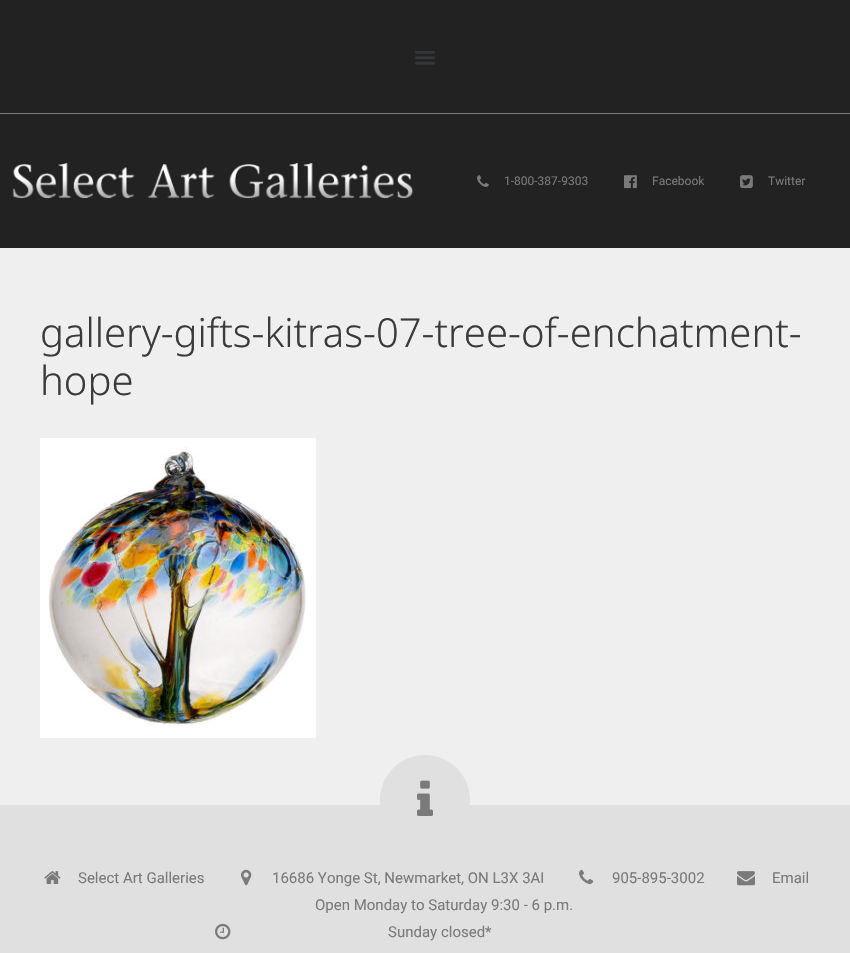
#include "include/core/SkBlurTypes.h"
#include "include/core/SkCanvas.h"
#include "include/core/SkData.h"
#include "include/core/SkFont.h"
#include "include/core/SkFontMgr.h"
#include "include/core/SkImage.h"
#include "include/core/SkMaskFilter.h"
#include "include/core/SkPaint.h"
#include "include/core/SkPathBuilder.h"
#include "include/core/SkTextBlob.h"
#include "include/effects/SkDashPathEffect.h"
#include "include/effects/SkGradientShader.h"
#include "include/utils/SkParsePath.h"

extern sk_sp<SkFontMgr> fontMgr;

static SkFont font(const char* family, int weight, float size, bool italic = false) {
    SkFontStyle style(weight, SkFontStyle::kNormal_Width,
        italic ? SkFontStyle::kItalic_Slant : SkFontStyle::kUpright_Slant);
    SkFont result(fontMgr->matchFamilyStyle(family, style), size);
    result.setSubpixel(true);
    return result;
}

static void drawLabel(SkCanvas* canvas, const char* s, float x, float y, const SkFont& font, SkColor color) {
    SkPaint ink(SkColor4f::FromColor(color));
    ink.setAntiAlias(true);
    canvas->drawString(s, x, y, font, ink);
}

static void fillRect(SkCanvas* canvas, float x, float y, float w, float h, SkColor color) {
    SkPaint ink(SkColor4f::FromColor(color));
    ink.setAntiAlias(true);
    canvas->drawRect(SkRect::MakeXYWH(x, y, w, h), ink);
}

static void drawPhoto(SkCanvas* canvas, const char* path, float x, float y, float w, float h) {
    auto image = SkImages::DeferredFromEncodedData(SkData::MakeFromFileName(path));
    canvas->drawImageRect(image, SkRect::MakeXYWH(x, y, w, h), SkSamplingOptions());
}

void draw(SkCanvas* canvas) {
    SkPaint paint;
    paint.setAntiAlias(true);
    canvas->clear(0xFFEFEFEF);
    fillRect(canvas, 0, 0, 850, 113, 0xFF222222);
    fillRect(canvas, 0, 113, 850, 1, 0xFF7A7A7A);
    drawPhoto(canvas, "assets/img1.png", 415, 51, 20, 14);
    fillRect(canvas, 0, 114, 850, 134, 0xFF222222);
    drawPhoto(canvas, "assets/img2.png", 12, 163, 401, 36);
    drawPhoto(canvas, "assets/img3.png", 477, 175, 12, 12);
    SkFont font1 = font("Roboto", 400, 12);
    drawLabel(canvas, "1-800-387-9303", 504, 185, font1, 0xFF7A7A7A);
    drawPhoto(canvas, "assets/img4.png", 624, 175, 13, 14);
    drawLabel(canvas, "Facebook", 652, 185, font1, 0xFF7A7A7A);
    drawPhoto(canvas, "assets/img5.png", 740, 175, 13, 14);
    drawLabel(canvas, "Twitter", 768, 185, font1, 0xFF7A7A7A);
    SkFont font2 = font("Noto Sans", 300, 40);
    drawLabel(canvas, "gallery-gifts-kitras-07-tree-of-enchatment-", 40, 347, font2, 0xFF3A3A3A);
    drawLabel(canvas, "hope", 40, 395, font2, 0xFF3A3A3A);
    drawPhoto(canvas, "assets/img6.png", 40, 438, 276, 300);
    fillRect(canvas, 0, 805, 850, 148, 0xFFE0E0E0);
    paint.setColor(0xFFE0E0E0);
    canvas->drawCircle(425, 800, 45, paint);
    drawPhoto(canvas, "assets/img7.png", 417, 780, 16, 36);
    drawPhoto(canvas, "assets/img8.png", 44, 871, 17, 13);
    SkFont font3 = font("Roboto", 400, 15);
    drawLabel(canvas, "Select Art Galleries", 78, 883, font3, 0xFF7A7A7A);
    drawPhoto(canvas, "assets/img9.png", 241, 869, 11, 17);
    drawLabel(canvas, "16686 Yonge St, Newmarket, ON L3X 3AI", 272, 883, font3, 0xFF7A7A7A);
    drawPhoto(canvas, "assets/img10.png", 579, 869, 15, 15);
    drawLabel(canvas, "905-895-3002", 612, 883, font3, 0xFF7A7A7A);
    drawPhoto(canvas, "assets/img11.png", 737, 871, 18, 15);
    drawLabel(canvas, "Email", 772, 883, font3, 0xFF7A7A7A);
    drawPhoto(canvas, "assets/img12.png", 215, 923, 16, 17);
    drawLabel(canvas, "Open Monday to Saturday 9:30 - 6 p.m.", 315, 910, font3, 0xFF7A7A7A);
    drawLabel(canvas, "Sunday closed*", 388, 937, font3, 0xFF7A7A7A);
}
